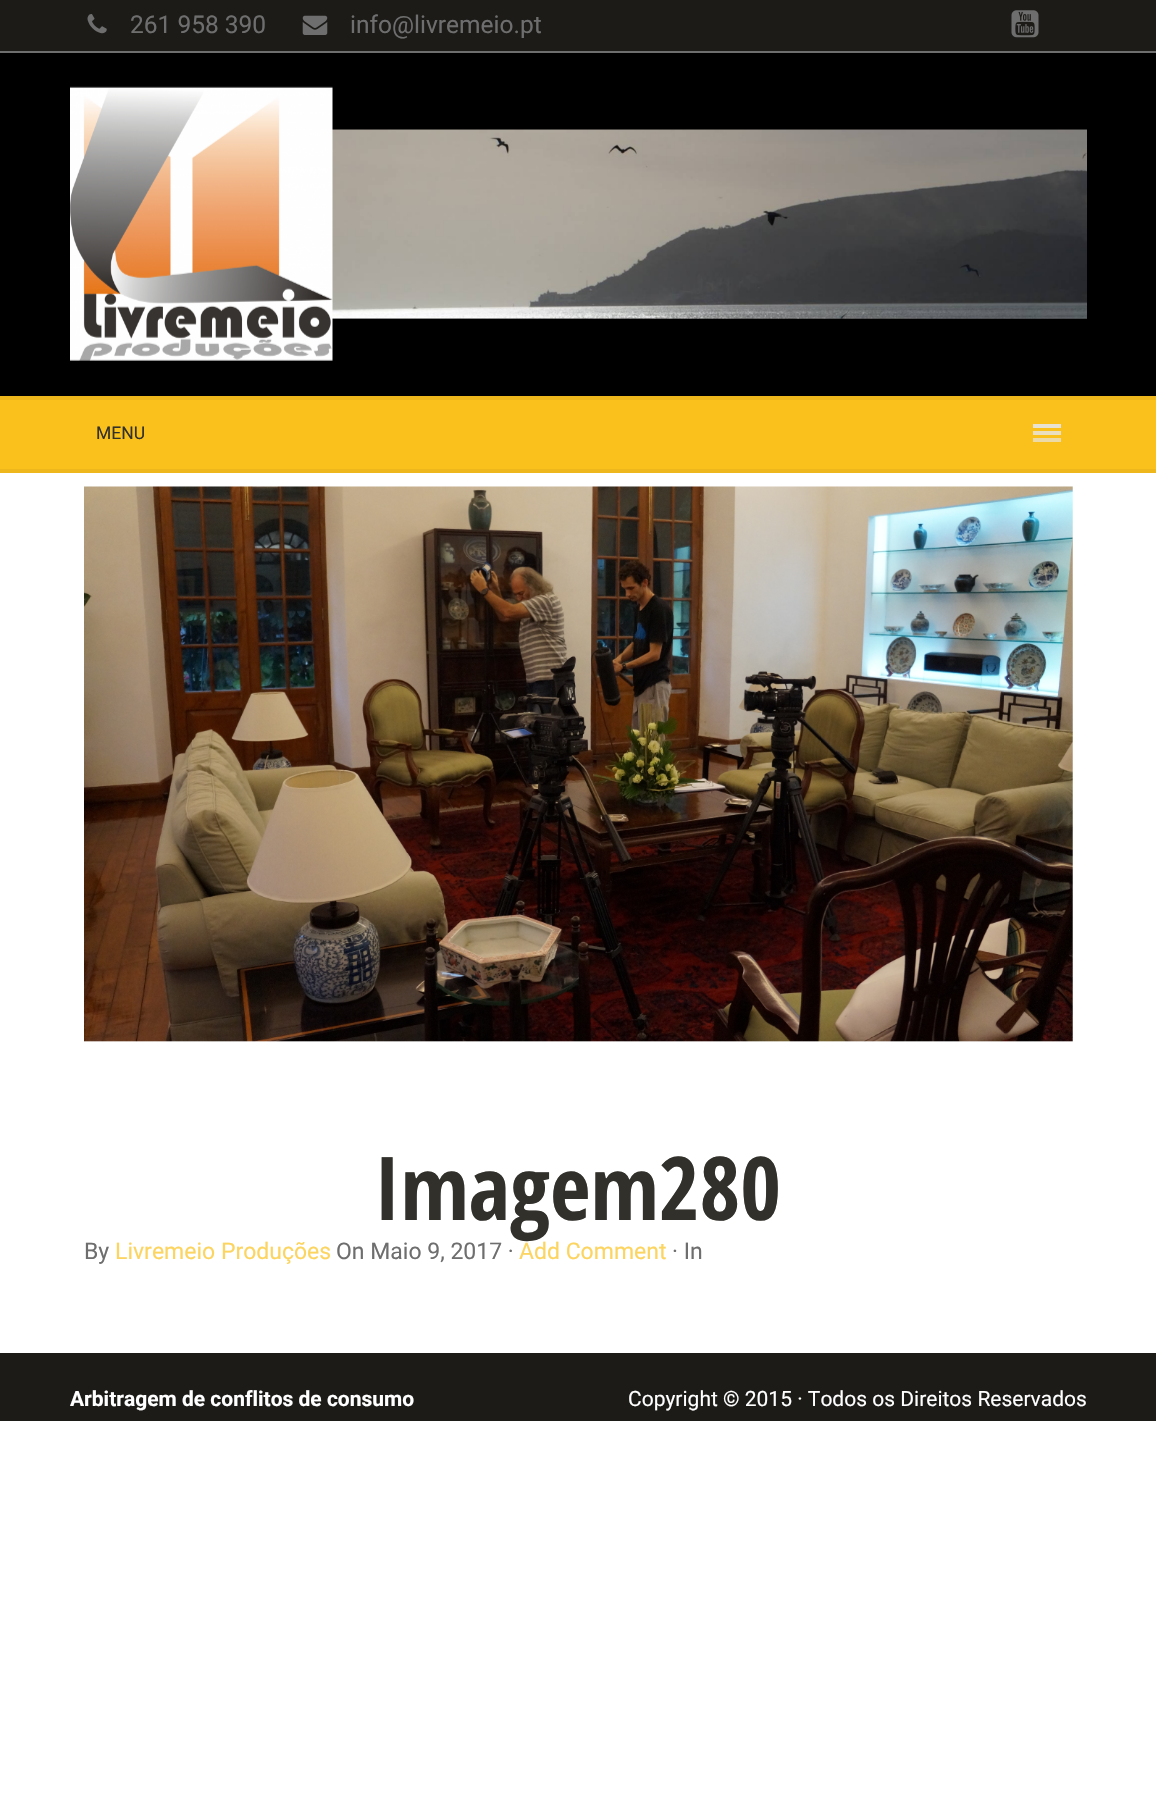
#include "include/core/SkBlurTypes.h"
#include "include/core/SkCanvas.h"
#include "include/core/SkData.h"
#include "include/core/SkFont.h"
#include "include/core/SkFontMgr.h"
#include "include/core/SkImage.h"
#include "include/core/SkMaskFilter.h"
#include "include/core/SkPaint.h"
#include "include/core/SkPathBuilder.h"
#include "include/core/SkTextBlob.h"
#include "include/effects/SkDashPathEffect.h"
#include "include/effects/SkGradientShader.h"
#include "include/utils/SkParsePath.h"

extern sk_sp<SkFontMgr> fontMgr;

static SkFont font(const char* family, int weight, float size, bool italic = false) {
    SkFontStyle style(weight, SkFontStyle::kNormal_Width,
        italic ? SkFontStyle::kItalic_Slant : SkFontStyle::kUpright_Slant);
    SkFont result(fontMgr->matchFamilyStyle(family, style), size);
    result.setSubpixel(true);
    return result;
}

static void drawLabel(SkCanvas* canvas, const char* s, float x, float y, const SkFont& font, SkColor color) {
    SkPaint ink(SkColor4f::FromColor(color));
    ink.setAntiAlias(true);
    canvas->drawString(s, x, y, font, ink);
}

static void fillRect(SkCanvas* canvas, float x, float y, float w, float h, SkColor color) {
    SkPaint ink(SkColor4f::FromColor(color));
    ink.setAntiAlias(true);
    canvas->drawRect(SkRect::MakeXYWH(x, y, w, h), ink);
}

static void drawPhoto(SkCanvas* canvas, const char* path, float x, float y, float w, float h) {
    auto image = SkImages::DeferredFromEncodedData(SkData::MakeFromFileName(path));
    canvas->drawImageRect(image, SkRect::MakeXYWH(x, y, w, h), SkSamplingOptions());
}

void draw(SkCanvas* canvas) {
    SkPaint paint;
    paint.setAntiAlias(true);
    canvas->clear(0xFFFFFFFF);
    fillRect(canvas, 0, 53, 1156, 343, 0xFF000000);
    fillRect(canvas, 0, 0, 1156, 51, 0xFF1C1B18);
    fillRect(canvas, 0, 51, 1156, 2, 0xFF6E6E6E);
    drawPhoto(canvas, "assets/img1.png", 87, 14, 20, 20);
    SkFont font1 = font("Roboto", 400, 24.5f);
    drawLabel(canvas, "261 958 390", 130, 33, font1, 0xFF6E6E6E);
    drawPhoto(canvas, "assets/img2.png", 302, 15, 26, 20);
    drawLabel(canvas, "info@livremeio.pt", 350, 33, font1, 0xFF6E6E6E);
    drawPhoto(canvas, "assets/img3.png", 1011, 10, 28, 28);
    drawPhoto(canvas, "assets/img4.png", 332, 129, 755, 190);
    drawPhoto(canvas, "assets/img5.png", 70, 86, 263, 275);
    fillRect(canvas, 0, 400, 1156, 69, 0xFFFAC11C);
    fillRect(canvas, 0, 396, 1156, 4, 0xFFEEB71B);
    fillRect(canvas, 0, 469, 1156, 4, 0xFFEEB71B);
    SkFont font2 = font("Roboto", 400, 17.5f);
    drawLabel(canvas, "MENU", 96, 439, font2, 0xFF32302B);
    fillRect(canvas, 1033, 438, 28, 4, 0xFFECDBA9);
    fillRect(canvas, 1033, 424, 28, 4, 0xFFE8E2D2);
    fillRect(canvas, 1033, 431, 28, 4, 0xFFEADFBE);
    drawPhoto(canvas, "assets/img6.png", 84, 486, 989, 556);
    SkFont font3 = font("Open Sans Condensed", 700, 88);
    drawLabel(canvas, "Imagem280", 374, 1220, font3, 0xFF32302B);
    SkFont font4 = font("Roboto", 400, 23);
    drawLabel(canvas, "By", 84, 1259, font4, 0xFF6E6E6E);
    drawLabel(canvas, "Livremeio Produções", 115, 1259, font4, 0xFFFCD460);
    drawLabel(canvas, "On Maio 9, 2017 ·", 336, 1259, font4, 0xFF6E6E6E);
    drawLabel(canvas, "Add Comment", 519, 1259, font4, 0xFFFCD460);
    drawLabel(canvas, "· In", 672, 1259, font4, 0xFF6E6E6E);
    fillRect(canvas, 0, 1353, 1156, 68, 0xFF1C1B18);
    SkFont font5 = font("Roboto", 700, 21);
    drawLabel(canvas, "Arbitragem de conflitos de consumo", 70, 1406, font5, 0xFFFFFFFF);
    SkFont font6 = font("Roboto", 400, 21);
    drawLabel(canvas, "Copyright © 2015 · Todos os Direitos Reservados", 628, 1406, font6, 0xFFFFFFFF);
}
